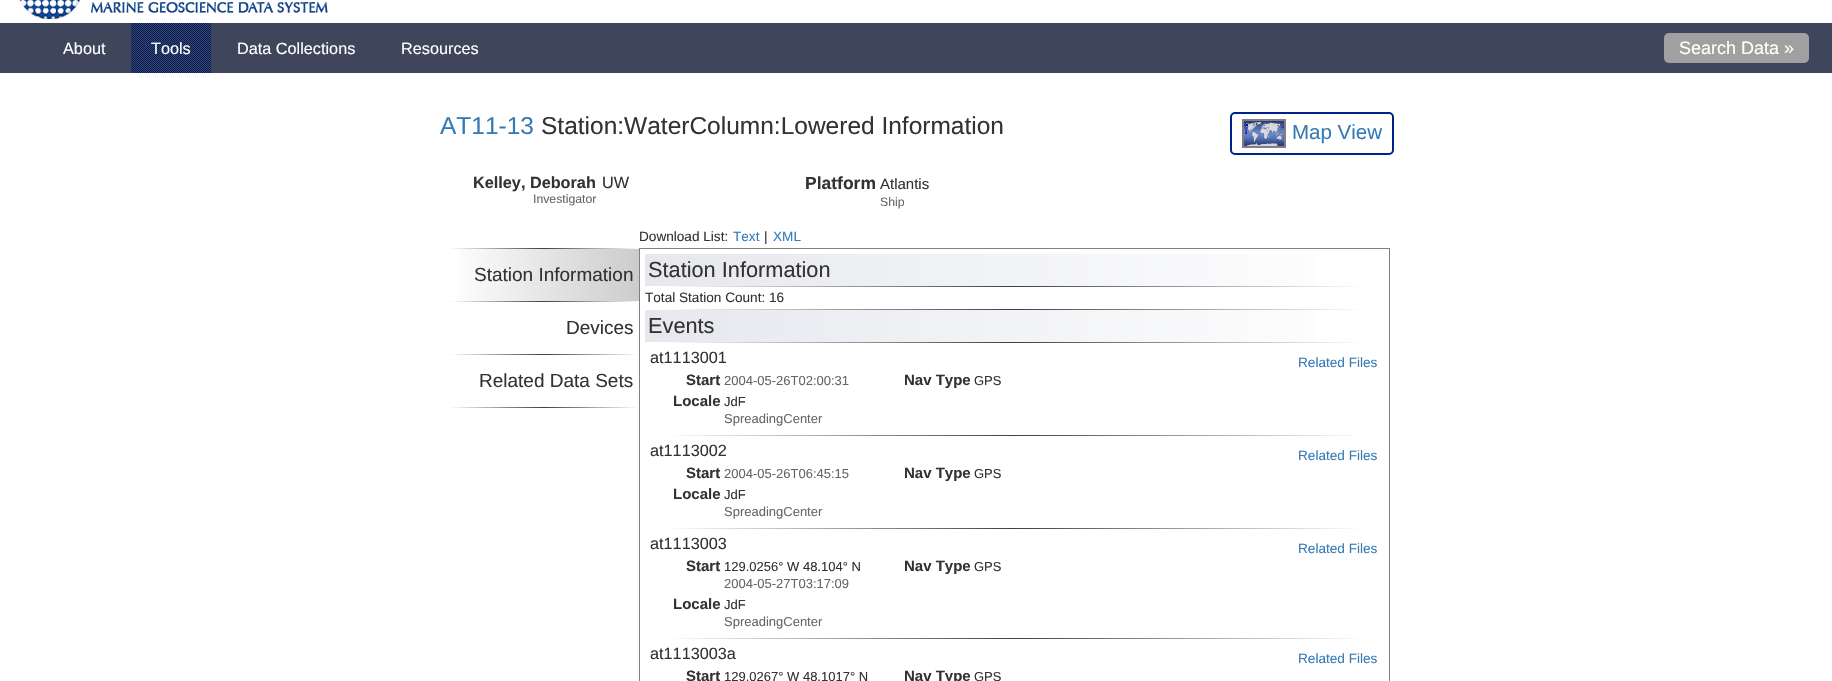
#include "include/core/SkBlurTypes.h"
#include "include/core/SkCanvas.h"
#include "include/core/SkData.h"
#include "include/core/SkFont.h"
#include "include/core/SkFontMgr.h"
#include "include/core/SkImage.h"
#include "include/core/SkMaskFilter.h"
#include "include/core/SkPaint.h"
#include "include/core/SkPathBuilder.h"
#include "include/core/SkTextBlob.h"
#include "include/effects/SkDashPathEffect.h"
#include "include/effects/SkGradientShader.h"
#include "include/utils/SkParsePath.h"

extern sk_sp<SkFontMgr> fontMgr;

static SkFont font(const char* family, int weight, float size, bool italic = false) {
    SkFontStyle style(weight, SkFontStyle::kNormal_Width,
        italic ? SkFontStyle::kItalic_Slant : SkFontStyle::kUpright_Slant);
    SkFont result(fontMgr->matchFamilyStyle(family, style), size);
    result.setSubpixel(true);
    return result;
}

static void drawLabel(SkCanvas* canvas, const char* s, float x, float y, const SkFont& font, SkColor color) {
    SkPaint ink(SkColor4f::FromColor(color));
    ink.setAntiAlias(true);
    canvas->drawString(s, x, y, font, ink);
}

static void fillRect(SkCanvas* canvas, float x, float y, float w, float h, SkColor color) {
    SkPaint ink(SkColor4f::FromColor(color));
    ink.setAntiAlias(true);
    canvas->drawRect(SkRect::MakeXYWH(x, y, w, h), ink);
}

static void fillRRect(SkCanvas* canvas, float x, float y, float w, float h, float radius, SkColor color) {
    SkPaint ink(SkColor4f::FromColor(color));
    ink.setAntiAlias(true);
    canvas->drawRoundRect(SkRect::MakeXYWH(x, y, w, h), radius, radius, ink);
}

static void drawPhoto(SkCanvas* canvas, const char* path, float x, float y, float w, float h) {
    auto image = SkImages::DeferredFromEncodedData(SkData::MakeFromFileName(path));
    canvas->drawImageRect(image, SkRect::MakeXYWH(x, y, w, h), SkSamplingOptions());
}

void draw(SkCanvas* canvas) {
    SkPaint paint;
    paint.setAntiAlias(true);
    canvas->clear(0xFFFFFFFF);
    drawPhoto(canvas, "assets/img1.png", 19, 0, 309, 19);
    fillRect(canvas, 0, 23, 1832, 50, 0xFF3F465C);
    SkFont font1 = font("Liberation Sans", 400, 16.25f);
    drawLabel(canvas, "About", 63, 54, font1, 0xFFFFFFFF);
    drawPhoto(canvas, "assets/img2.png", 131, 23, 80, 50);
    drawLabel(canvas, "Tools", 151, 54, font1, 0xFFFFFFFF);
    drawLabel(canvas, "Data Collections", 237, 54, font1, 0xFFFFFFFF);
    drawLabel(canvas, "Resources", 401, 54, font1, 0xFFFFFFFF);
    fillRRect(canvas, 1664, 33, 145, 30, 5, 0xFFA0A0A0);
    SkFont font2 = font("Liberation Sans", 400, 18);
    drawLabel(canvas, "Search Data »", 1679, 54, font2, 0xFFFFFFFF);
    SkFont font3 = font("Liberation Sans", 400, 24.5f);
    drawLabel(canvas, "AT11-13", 440, 134, font3, 0xFF337AB7);
    drawLabel(canvas, "Station:WaterColumn:Lowered Information", 541, 134, font3, 0xFF333333);
    paint.setStroke(true);
    paint.setStrokeWidth(2);
    paint.setColor(0xFF002288);
    canvas->drawRoundRect(SkRect::MakeXYWH(1231, 113, 162, 41), 4, 4, paint);
    paint.setColor(0xFF808080);
    canvas->drawRect(SkRect::MakeXYWH(1243, 120, 42, 27), paint);
    drawPhoto(canvas, "assets/img3.png", 1244, 121, 40, 25);
    SkFont font4 = font("Liberation Sans", 400, 20.5f);
    drawLabel(canvas, "Map View", 1292, 139, font4, 0xFF337AB7);
    SkFont font5 = font("Liberation Sans", 700, 16.25f);
    drawLabel(canvas, "Kelley, Deborah", 473, 188, font5, 0xFF333333);
    SkFont font6 = font("Liberation Sans", 400, 12.25f);
    drawLabel(canvas, "Investigator", 533, 203, font6, 0xFF666666);
    drawLabel(canvas, "UW", 602, 188, font1, 0xFF333333);
    SkFont font7 = font("Liberation Sans", 700, 17.5f);
    drawLabel(canvas, "Platform", 805, 189, font7, 0xFF333333);
    SkFont font8 = font("Liberation Sans", 400, 15);
    drawLabel(canvas, "Atlantis", 880, 189, font8, 0xFF333333);
    drawLabel(canvas, "Ship", 880, 206, font6, 0xFF666666);
    SkFont font9 = font("Liberation Sans", 400, 13.6f);
    drawLabel(canvas, "Download List:", 639, 241, font9, 0xFF333333);
    drawLabel(canvas, "Text", 733, 241, font9, 0xFF337AB7);
    drawLabel(canvas, "|", 764, 241, font9, 0xFF333333);
    drawLabel(canvas, "XML", 773, 241, font9, 0xFF337AB7);
    paint.setStroke(false);
    {
        const SkColor colors[] = {0xFFFFFFFF, 0xFF404040, 0xFFFFFFFF};
        const float stops[] = {0, 0.5f, 1};
        const SkPoint ends[] = {{449, 249}, {639, 249}};
        paint.setShader(SkGradientShader::MakeLinear(ends, colors, stops, 3, SkTileMode::kClamp));
        paint.setAlpha(255);
    }
    canvas->drawRect(SkRect::MakeXYWH(449, 248, 190, 1), paint);
    {
        const SkColor colors[] = {0xFFFFFFFF, 0xFFCCCCCC};
        const float stops[] = {0, 1};
        const SkPoint ends[] = {{449, 275}, {639, 275}};
        paint.setShader(SkGradientShader::MakeLinear(ends, colors, stops, 2, SkTileMode::kClamp));
        paint.setAlpha(255);
    }
    canvas->drawRect(SkRect::MakeXYWH(458, 249, 181, 52), paint);
    SkFont font10 = font("Liberation Sans", 400, 19);
    drawLabel(canvas, "Station Information", 474, 281, font10, 0xFF333333);
    {
        const SkColor colors[] = {0xFFFFFFFF, 0xFF404040, 0xFFFFFFFF};
        const float stops[] = {0, 0.5f, 1};
        const SkPoint ends[] = {{449, 302}, {639, 302}};
        paint.setShader(SkGradientShader::MakeLinear(ends, colors, stops, 3, SkTileMode::kClamp));
        paint.setAlpha(255);
    }
    canvas->drawRect(SkRect::MakeXYWH(449, 301, 190, 1), paint);
    drawLabel(canvas, "Devices", 566, 334, font10, 0xFF333333);
    {
        const SkColor colors[] = {0xFFFFFFFF, 0xFF404040, 0xFFFFFFFF};
        const float stops[] = {0, 0.5f, 1};
        const SkPoint ends[] = {{449, 355}, {639, 355}};
        paint.setShader(SkGradientShader::MakeLinear(ends, colors, stops, 3, SkTileMode::kClamp));
        paint.setAlpha(255);
    }
    canvas->drawRect(SkRect::MakeXYWH(449, 354, 190, 1), paint);
    drawLabel(canvas, "Related Data Sets", 479, 387, font10, 0xFF333333);
    {
        const SkColor colors[] = {0xFFFFFFFF, 0xFF404040, 0xFFFFFFFF};
        const float stops[] = {0, 0.5f, 1};
        const SkPoint ends[] = {{449, 408}, {639, 408}};
        paint.setShader(SkGradientShader::MakeLinear(ends, colors, stops, 3, SkTileMode::kClamp));
        paint.setAlpha(255);
    }
    canvas->drawRect(SkRect::MakeXYWH(449, 407, 190, 1), paint);
    paint.setStroke(true);
    paint.setStrokeWidth(1);
    paint.setShader(nullptr);
    paint.setColor(0xFF808080);
    canvas->drawRect(SkRect::MakeXYWH(639.5f, 248.5f, 750, 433), paint);
    paint.setStroke(false);
    {
        const SkColor colors[] = {0xFFE6E8EE, 0xFFFFFFFF};
        const float stops[] = {0, 1};
        const SkPoint ends[] = {{645, 270}, {1390, 270}};
        paint.setShader(SkGradientShader::MakeLinear(ends, colors, stops, 2, SkTileMode::kClamp));
        paint.setAlpha(255);
    }
    canvas->drawRect(SkRect::MakeXYWH(645, 254, 671, 32), paint);
    SkFont font11 = font("Liberation Sans", 400, 21.75f);
    drawLabel(canvas, "Station Information", 648, 277, font11, 0xFF333333);
    {
        const SkColor colors[] = {0xFFFFFFFF, 0xFF404040, 0xFFFFFFFF};
        const float stops[] = {0, 0.5f, 1};
        const SkPoint ends[] = {{665, 287}, {1364, 287}};
        paint.setShader(SkGradientShader::MakeLinear(ends, colors, stops, 3, SkTileMode::kClamp));
        paint.setAlpha(255);
    }
    canvas->drawRect(SkRect::MakeXYWH(665, 286, 699, 1), paint);
    drawLabel(canvas, "Total Station Count: 16", 645, 302, font9, 0xFF333333);
    {
        const SkColor colors[] = {0xFFFFFFFF, 0xFF404040, 0xFFFFFFFF};
        const float stops[] = {0, 0.5f, 1};
        const SkPoint ends[] = {{665, 310}, {1364, 310}};
        paint.setShader(SkGradientShader::MakeLinear(ends, colors, stops, 3, SkTileMode::kClamp));
        paint.setAlpha(255);
    }
    canvas->drawRect(SkRect::MakeXYWH(665, 309, 699, 1), paint);
    {
        const SkColor colors[] = {0xFFE6E8EE, 0xFFFFFFFF};
        const float stops[] = {0, 1};
        const SkPoint ends[] = {{645, 326}, {1390, 326}};
        paint.setShader(SkGradientShader::MakeLinear(ends, colors, stops, 2, SkTileMode::kClamp));
        paint.setAlpha(255);
    }
    canvas->drawRect(SkRect::MakeXYWH(645, 310, 671, 32), paint);
    drawLabel(canvas, "Events", 648, 333, font11, 0xFF333333);
    {
        const SkColor colors[] = {0xFFFFFFFF, 0xFF404040, 0xFFFFFFFF};
        const float stops[] = {0, 0.5f, 1};
        const SkPoint ends[] = {{665, 343}, {1364, 343}};
        paint.setShader(SkGradientShader::MakeLinear(ends, colors, stops, 3, SkTileMode::kClamp));
        paint.setAlpha(255);
    }
    canvas->drawRect(SkRect::MakeXYWH(665, 342, 699, 1), paint);
    drawLabel(canvas, "at1113001", 650, 363, font1, 0xFF333333);
    SkFont font12 = font("Liberation Sans", 700, 15);
    drawLabel(canvas, "Start", 686, 385, font12, 0xFF333333);
    SkFont font13 = font("Liberation Sans", 400, 13);
    drawLabel(canvas, "2004-05-26T02:00:31", 724, 385, font13, 0xFF666666);
    drawLabel(canvas, "Locale", 673, 406, font12, 0xFF333333);
    drawLabel(canvas, "JdF", 724, 406, font13, 0xFF333333);
    drawLabel(canvas, "SpreadingCenter", 724, 423, font13, 0xFF666666);
    drawLabel(canvas, "Nav Type", 904, 385, font12, 0xFF333333);
    drawLabel(canvas, "GPS", 974, 385, font13, 0xFF333333);
    drawLabel(canvas, "Related Files", 1298, 367, font9, 0xFF337AB7);
    {
        const SkColor colors[] = {0xFFFFFFFF, 0xFF404040, 0xFFFFFFFF};
        const float stops[] = {0, 0.5f, 1};
        const SkPoint ends[] = {{665, 436}, {1364, 436}};
        paint.setShader(SkGradientShader::MakeLinear(ends, colors, stops, 3, SkTileMode::kClamp));
        paint.setAlpha(255);
    }
    canvas->drawRect(SkRect::MakeXYWH(665, 435, 699, 1), paint);
    drawLabel(canvas, "at1113002", 650, 456, font1, 0xFF333333);
    drawLabel(canvas, "Start", 686, 478, font12, 0xFF333333);
    drawLabel(canvas, "2004-05-26T06:45:15", 724, 478, font13, 0xFF666666);
    drawLabel(canvas, "Locale", 673, 499, font12, 0xFF333333);
    drawLabel(canvas, "JdF", 724, 499, font13, 0xFF333333);
    drawLabel(canvas, "SpreadingCenter", 724, 516, font13, 0xFF666666);
    drawLabel(canvas, "Nav Type", 904, 478, font12, 0xFF333333);
    drawLabel(canvas, "GPS", 974, 478, font13, 0xFF333333);
    drawLabel(canvas, "Related Files", 1298, 460, font9, 0xFF337AB7);
    {
        const SkColor colors[] = {0xFFFFFFFF, 0xFF404040, 0xFFFFFFFF};
        const float stops[] = {0, 0.5f, 1};
        const SkPoint ends[] = {{665, 529}, {1364, 529}};
        paint.setShader(SkGradientShader::MakeLinear(ends, colors, stops, 3, SkTileMode::kClamp));
        paint.setAlpha(255);
    }
    canvas->drawRect(SkRect::MakeXYWH(665, 528, 699, 1), paint);
    drawLabel(canvas, "at1113003", 650, 549, font1, 0xFF333333);
    drawLabel(canvas, "Start", 686, 571, font12, 0xFF333333);
    drawLabel(canvas, "129.0256° W 48.104° N", 724, 571, font13, 0xFF333333);
    drawLabel(canvas, "2004-05-27T03:17:09", 724, 588, font13, 0xFF666666);
    drawLabel(canvas, "Locale", 673, 609, font12, 0xFF333333);
    drawLabel(canvas, "JdF", 724, 609, font13, 0xFF333333);
    drawLabel(canvas, "SpreadingCenter", 724, 626, font13, 0xFF666666);
    drawLabel(canvas, "Nav Type", 904, 571, font12, 0xFF333333);
    drawLabel(canvas, "GPS", 974, 571, font13, 0xFF333333);
    drawLabel(canvas, "Related Files", 1298, 553, font9, 0xFF337AB7);
    {
        const SkColor colors[] = {0xFFFFFFFF, 0xFF404040, 0xFFFFFFFF};
        const float stops[] = {0, 0.5f, 1};
        const SkPoint ends[] = {{665, 639}, {1364, 639}};
        paint.setShader(SkGradientShader::MakeLinear(ends, colors, stops, 3, SkTileMode::kClamp));
        paint.setAlpha(255);
    }
    canvas->drawRect(SkRect::MakeXYWH(665, 638, 699, 1), paint);
    drawLabel(canvas, "at1113003a", 650, 659, font1, 0xFF333333);
    drawLabel(canvas, "Start", 686, 681, font12, 0xFF333333);
    drawLabel(canvas, "129.0267° W 48.1017° N", 724, 681, font13, 0xFF333333);
    drawLabel(canvas, "Nav Type", 904, 681, font12, 0xFF333333);
    drawLabel(canvas, "GPS", 974, 681, font13, 0xFF333333);
    drawLabel(canvas, "Related Files", 1298, 663, font9, 0xFF337AB7);
}
